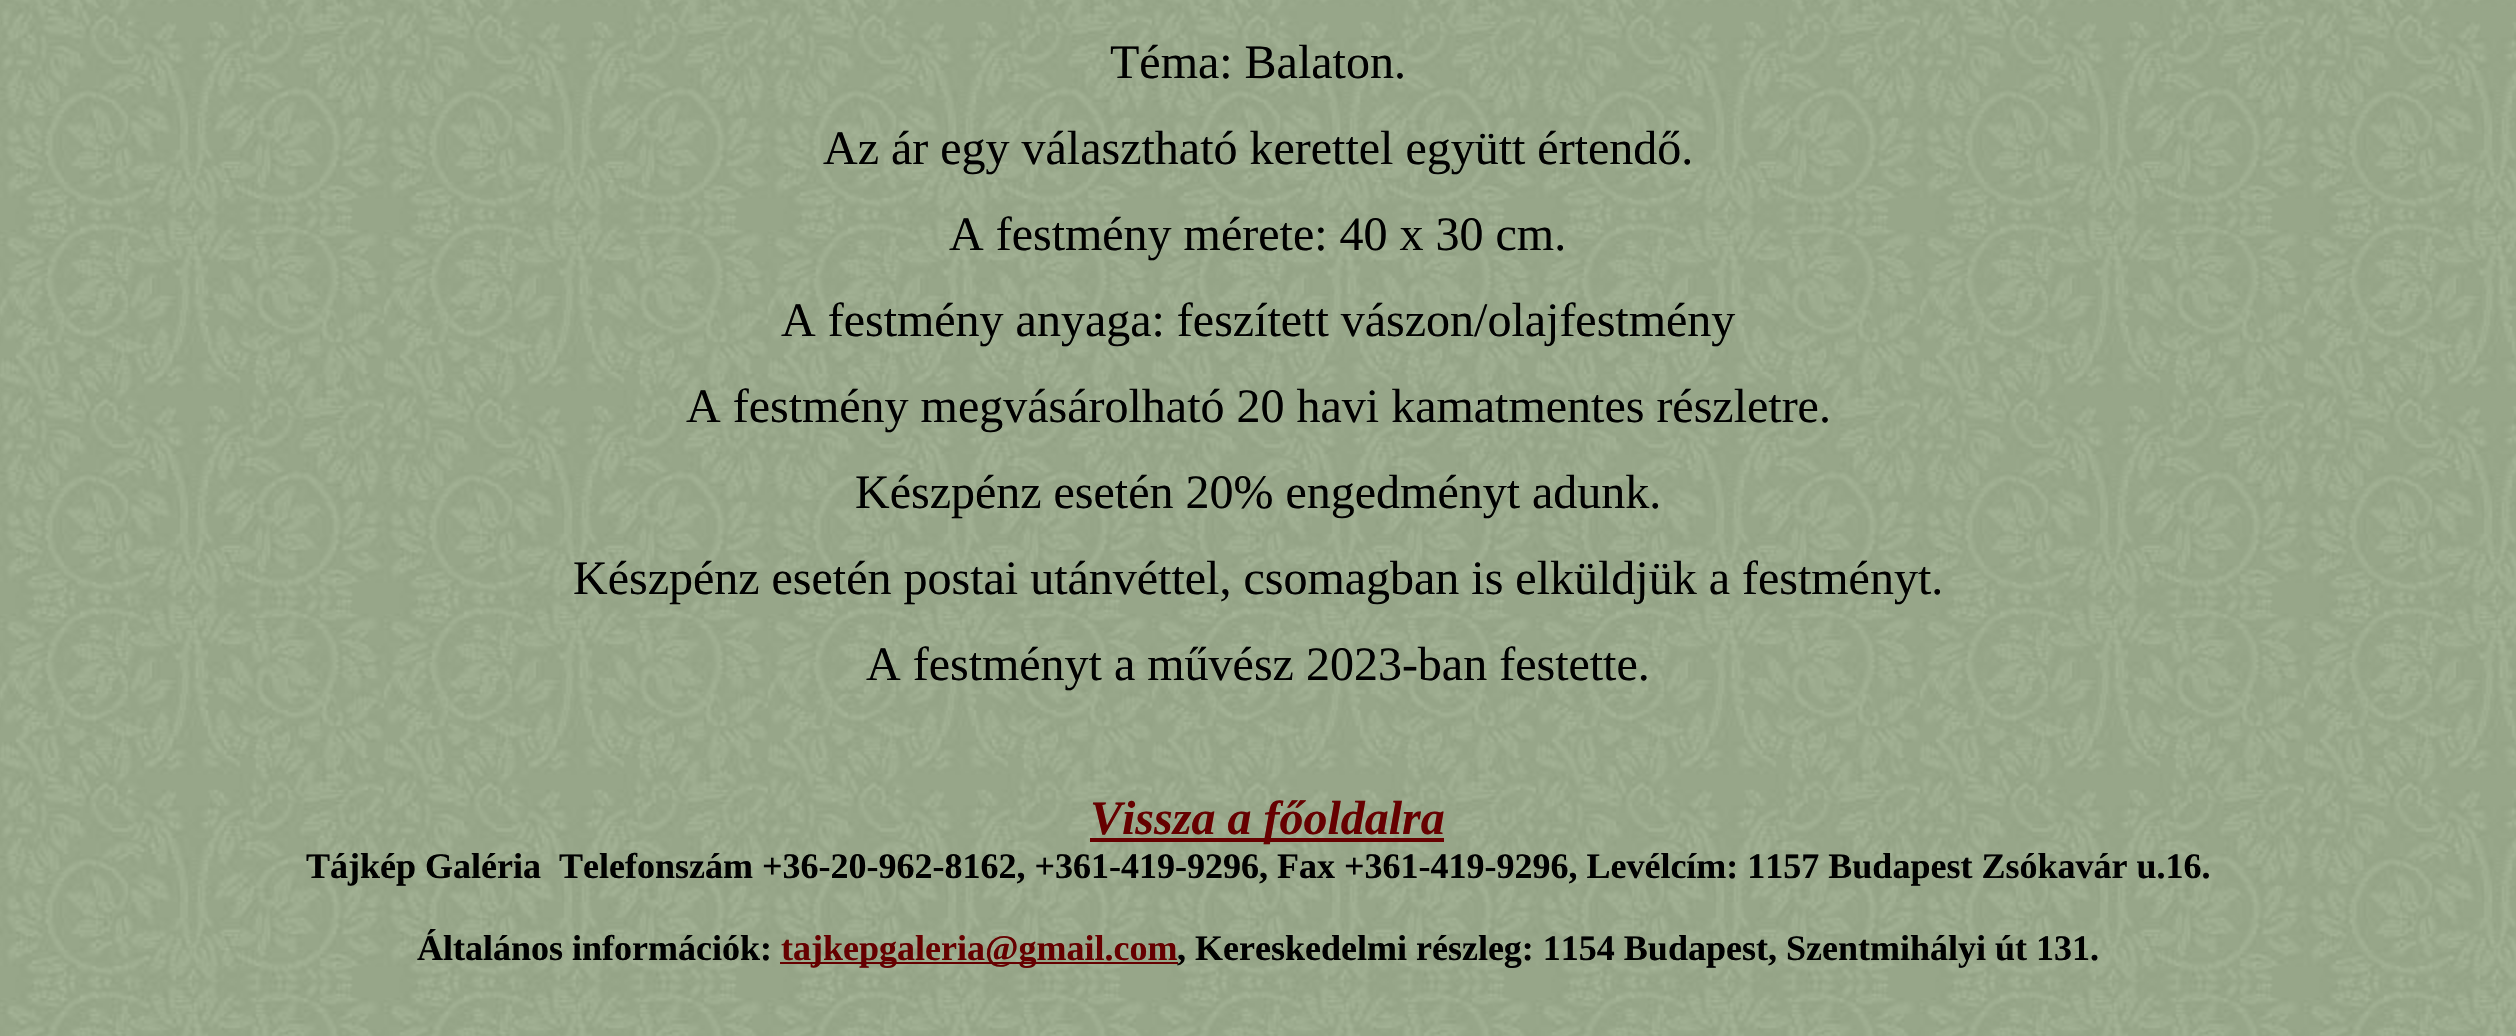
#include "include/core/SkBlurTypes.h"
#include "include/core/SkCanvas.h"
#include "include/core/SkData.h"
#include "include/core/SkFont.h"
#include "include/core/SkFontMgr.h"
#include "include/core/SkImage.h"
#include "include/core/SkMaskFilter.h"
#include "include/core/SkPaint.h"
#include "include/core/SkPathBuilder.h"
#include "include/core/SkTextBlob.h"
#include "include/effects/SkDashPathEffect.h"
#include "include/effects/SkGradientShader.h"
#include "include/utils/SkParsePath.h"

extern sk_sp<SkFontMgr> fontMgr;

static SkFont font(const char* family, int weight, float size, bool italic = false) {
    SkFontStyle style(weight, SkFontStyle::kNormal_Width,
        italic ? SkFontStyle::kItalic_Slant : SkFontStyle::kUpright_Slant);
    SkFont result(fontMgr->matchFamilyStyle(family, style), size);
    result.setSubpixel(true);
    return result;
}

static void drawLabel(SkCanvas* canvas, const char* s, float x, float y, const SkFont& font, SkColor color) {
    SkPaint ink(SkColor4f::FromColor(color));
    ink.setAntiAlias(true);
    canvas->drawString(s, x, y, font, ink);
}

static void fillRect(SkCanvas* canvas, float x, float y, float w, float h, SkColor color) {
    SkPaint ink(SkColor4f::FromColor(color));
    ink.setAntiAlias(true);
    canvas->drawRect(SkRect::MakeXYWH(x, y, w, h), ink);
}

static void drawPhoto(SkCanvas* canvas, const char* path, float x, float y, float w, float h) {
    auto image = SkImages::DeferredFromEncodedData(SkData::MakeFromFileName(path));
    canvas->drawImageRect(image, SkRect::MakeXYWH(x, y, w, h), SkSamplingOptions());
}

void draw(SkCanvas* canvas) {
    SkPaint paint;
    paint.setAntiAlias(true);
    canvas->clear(0xFFFFFFFF);
    drawPhoto(canvas, "assets/img1.png", 0, 0, 2516, 1036);
    SkFont font1 = font("Liberation Serif", 400, 48);
    drawLabel(canvas, "Téma: Balaton.", 1110, 78, font1, 0xFF000000);
    drawLabel(canvas, "Az ár egy választható kerettel együtt értendő.", 823, 164, font1, 0xFF000000);
    drawLabel(canvas, "A festmény mérete: 40 x 30 cm.", 949, 250, font1, 0xFF000000);
    drawLabel(canvas, "A festmény anyaga: feszített vászon/olajfestmény", 781, 336, font1, 0xFF000000);
    drawLabel(canvas, "A festmény megvásárolható 20 havi kamatmentes részletre.", 686, 422, font1, 0xFF000000);
    drawLabel(canvas, "Készpénz esetén 20% engedményt adunk.", 855, 508, font1, 0xFF000000);
    drawLabel(canvas, "Készpénz esetén postai utánvéttel, csomagban is elküldjük a festményt.", 573, 594, font1, 0xFF000000);
    drawLabel(canvas, "A festményt a művész 2023-ban festette.", 866, 680, font1, 0xFF000000);
    fillRect(canvas, 1090, 838, 354, 4, 0xFF660000);
    SkFont font2 = font("Liberation Serif", 700, 48, true);
    drawLabel(canvas, "Vissza a főoldalra", 1090, 834, font2, 0xFF660000);
    SkFont font3 = font("Liberation Serif", 700, 36);
    drawLabel(canvas, "Tájkép Galéria", 306, 878, font3, 0xFF000000);
    drawLabel(canvas, "Telefonszám +36-20-962-8162, +361-419-9296, Fax +361-419-9296, Levélcím: 1157 Budapest Zsókavár u.16.", 559, 878, font3, 0xFF000000);
    drawLabel(canvas, "Általános információk:", 417, 960, font3, 0xFF000000);
    fillRect(canvas, 780, 962, 398, 2, 0xFF660000);
    drawLabel(canvas, "tajkepgaleria@gmail.com", 781, 960, font3, 0xFF660000);
    drawLabel(canvas, ", Kereskedelmi részleg: 1154 Budapest, Szentmihályi út 131.", 1177, 960, font3, 0xFF000000);
}
